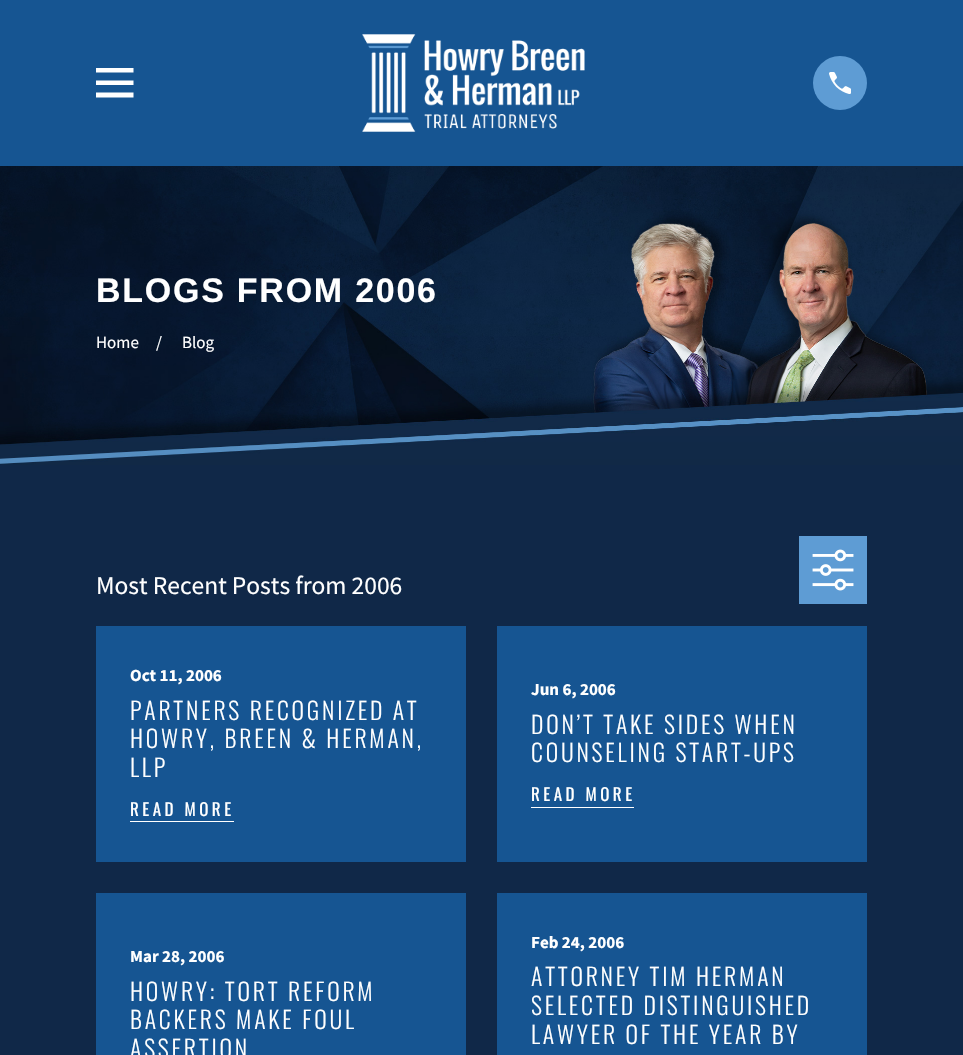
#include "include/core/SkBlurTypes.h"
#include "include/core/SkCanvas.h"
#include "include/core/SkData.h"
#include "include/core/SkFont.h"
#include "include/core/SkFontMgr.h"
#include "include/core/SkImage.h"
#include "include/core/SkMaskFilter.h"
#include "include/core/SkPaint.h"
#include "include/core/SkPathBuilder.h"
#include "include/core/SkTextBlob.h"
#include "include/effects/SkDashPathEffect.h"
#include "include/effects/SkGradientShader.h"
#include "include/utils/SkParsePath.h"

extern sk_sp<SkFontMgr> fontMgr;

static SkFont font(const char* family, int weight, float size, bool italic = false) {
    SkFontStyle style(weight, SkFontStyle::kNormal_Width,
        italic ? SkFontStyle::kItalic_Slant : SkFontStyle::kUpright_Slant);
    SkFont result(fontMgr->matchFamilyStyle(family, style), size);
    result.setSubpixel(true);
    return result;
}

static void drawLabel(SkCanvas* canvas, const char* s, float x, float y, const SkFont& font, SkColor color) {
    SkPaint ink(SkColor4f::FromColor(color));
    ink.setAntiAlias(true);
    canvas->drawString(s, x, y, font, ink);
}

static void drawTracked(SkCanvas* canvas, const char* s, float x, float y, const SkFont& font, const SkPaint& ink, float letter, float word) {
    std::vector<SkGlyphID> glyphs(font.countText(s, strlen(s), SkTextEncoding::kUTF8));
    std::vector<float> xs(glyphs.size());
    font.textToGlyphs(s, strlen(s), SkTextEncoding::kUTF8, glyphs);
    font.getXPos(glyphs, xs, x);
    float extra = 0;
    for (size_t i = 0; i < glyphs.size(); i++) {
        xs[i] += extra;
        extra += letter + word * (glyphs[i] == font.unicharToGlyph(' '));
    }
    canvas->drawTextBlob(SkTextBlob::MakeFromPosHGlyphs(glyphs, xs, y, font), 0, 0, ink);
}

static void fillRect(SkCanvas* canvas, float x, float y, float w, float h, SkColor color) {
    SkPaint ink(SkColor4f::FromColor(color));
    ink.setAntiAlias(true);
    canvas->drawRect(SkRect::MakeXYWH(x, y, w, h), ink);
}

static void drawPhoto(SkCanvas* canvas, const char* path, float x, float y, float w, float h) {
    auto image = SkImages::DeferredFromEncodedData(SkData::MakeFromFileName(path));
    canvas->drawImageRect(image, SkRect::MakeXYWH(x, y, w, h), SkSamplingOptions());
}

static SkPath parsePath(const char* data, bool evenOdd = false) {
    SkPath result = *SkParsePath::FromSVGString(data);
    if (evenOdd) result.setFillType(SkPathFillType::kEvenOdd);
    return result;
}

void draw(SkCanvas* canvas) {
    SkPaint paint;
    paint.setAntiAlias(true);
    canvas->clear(0xFF102848);
    fillRect(canvas, 0, 0, 963, 166, 0xFF165592);
    paint.setColor(0xFFFFFFFF);
    canvas->drawPath(parsePath("M96 68V72.5H133.5V68ZM96 80.5V85H133.5V80.5ZM96 92.5V97.5H133.5V92.5Z"), paint);
    drawPhoto(canvas, "assets/img1.png", 362, 34, 223, 98);
    paint.setColor(0xFF5E9CD4);
    canvas->drawCircle(840, 83, 27, paint);
    drawPhoto(canvas, "assets/img2.png", 829, 72, 22, 22);
    drawPhoto(canvas, "assets/img3.png", 0, 166, 963, 299);
    SkFont font1 = font("Liberation Sans", 700, 34);
    paint.setColor(0xFFFFFFFF);
    drawTracked(canvas, "BLOGS FROM 2006", 96, 302, font1, paint, 1.75f, 0);
    SkFont font2 = font("Source Sans Pro", 400, 17);
    drawLabel(canvas, "Home", 96, 348, font2, 0xFFFFFFFF);
    drawLabel(canvas, "/", 156, 348, font2, 0xFFFFFFFF);
    drawLabel(canvas, "Blog", 182, 348, font2, 0xFFFFFFFF);
    SkFont font3 = font("Source Sans Pro", 400, 25.5f);
    drawLabel(canvas, "Most Recent Posts from 2006", 96, 594, font3, 0xFFFFFFFF);
    fillRect(canvas, 799, 536, 68, 68, 0xFF5E9CD4);
    drawPhoto(canvas, "assets/img4.png", 812, 549, 42, 42);
    fillRect(canvas, 96, 626, 370, 236, 0xFF165592);
    SkFont font4 = font("Source Sans Pro", 700, 17);
    drawLabel(canvas, "Oct 11, 2006", 130, 681, font4, 0xFFFFFFFF);
    SkFont font5 = font("Oswald", 300, 23.75f);
    drawTracked(canvas, "PARTNERS RECOGNIZED AT", 130, 720, font5, paint, 2.8f, 0);
    drawTracked(canvas, "HOWRY, BREEN & HERMAN,", 130, 748, font5, paint, 2.8f, 0);
    drawTracked(canvas, "LLP", 130, 777, font5, paint, 2.8f, 0);
    SkFont font6 = font("Oswald", 400, 17);
    drawTracked(canvas, "READ MORE", 130, 816, font6, paint, 3.5f, 0);
    fillRect(canvas, 130, 821, 104, 1, 0xFFFFFFFF);
    fillRect(canvas, 497, 626, 370, 236, 0xFF165592);
    drawLabel(canvas, "Jun 6, 2006", 531, 695, font4, 0xFFFFFFFF);
    drawTracked(canvas, "DON’T TAKE SIDES WHEN", 531, 734, font5, paint, 2.8f, 0);
    drawTracked(canvas, "COUNSELING START-UPS", 531, 762, font5, paint, 2.8f, 0);
    drawTracked(canvas, "READ MORE", 531, 801, font6, paint, 3.5f, 0);
    fillRect(canvas, 531, 807, 103, 1, 0xFFFFFFFF);
    fillRect(canvas, 96, 893, 370, 162, 0xFF165592);
    drawLabel(canvas, "Mar 28, 2006", 130, 962, font4, 0xFFFFFFFF);
    drawTracked(canvas, "HOWRY: TORT REFORM", 130, 1001, font5, paint, 2.8f, 0);
    drawTracked(canvas, "BACKERS MAKE FOUL", 130, 1029, font5, paint, 2.8f, 0);
    drawTracked(canvas, "ASSERTION", 130, 1058, font5, paint, 2.8f, 0);
    fillRect(canvas, 497, 893, 370, 162, 0xFF165592);
    drawLabel(canvas, "Feb 24, 2006", 531, 948, font4, 0xFFFFFFFF);
    drawTracked(canvas, "ATTORNEY TIM HERMAN", 531, 986, font5, paint, 2.8f, 0);
    drawTracked(canvas, "SELECTED DISTINGUISHED", 531, 1015, font5, paint, 2.8f, 0);
    drawTracked(canvas, "LAWYER OF THE YEAR BY", 531, 1044, font5, paint, 2.8f, 0);
}
